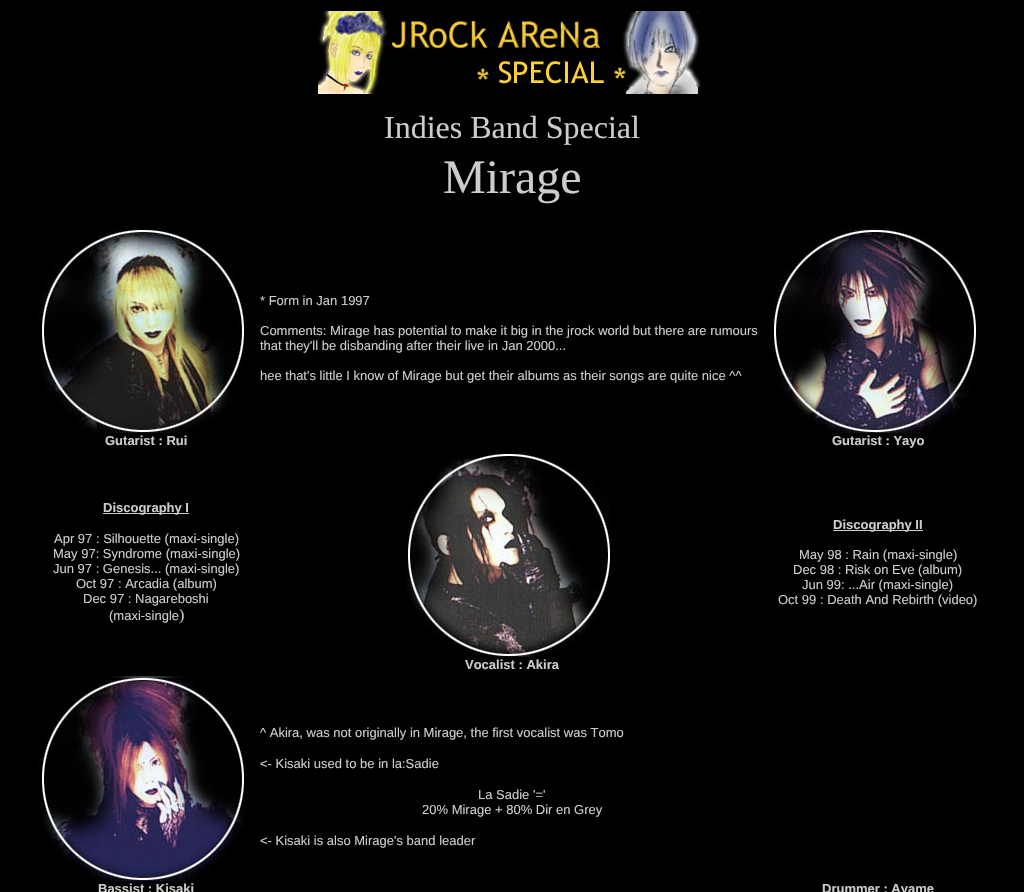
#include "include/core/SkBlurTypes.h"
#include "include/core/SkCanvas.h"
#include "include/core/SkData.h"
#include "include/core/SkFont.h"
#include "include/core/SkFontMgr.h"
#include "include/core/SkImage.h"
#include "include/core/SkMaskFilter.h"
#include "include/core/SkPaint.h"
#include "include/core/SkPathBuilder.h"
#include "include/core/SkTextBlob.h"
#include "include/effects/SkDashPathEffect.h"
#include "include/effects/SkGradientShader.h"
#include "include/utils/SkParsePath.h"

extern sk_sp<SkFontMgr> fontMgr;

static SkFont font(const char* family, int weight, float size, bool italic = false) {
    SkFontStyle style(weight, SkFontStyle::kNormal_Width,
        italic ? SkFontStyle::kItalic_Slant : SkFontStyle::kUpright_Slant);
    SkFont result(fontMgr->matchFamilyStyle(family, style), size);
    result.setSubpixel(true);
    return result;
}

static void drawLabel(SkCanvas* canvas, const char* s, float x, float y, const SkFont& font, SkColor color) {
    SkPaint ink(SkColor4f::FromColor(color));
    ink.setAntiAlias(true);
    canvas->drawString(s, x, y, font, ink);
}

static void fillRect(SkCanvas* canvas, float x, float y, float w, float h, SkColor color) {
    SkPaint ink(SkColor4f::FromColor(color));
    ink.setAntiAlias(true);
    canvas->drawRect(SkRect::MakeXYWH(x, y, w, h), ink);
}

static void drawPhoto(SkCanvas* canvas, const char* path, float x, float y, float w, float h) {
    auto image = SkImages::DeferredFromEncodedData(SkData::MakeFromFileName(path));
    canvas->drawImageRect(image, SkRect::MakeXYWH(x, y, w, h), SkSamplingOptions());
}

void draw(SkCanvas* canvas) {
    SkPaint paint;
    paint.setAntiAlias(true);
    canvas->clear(0xFF000000);
    drawPhoto(canvas, "assets/img1.png", 318, 11, 384, 83);
    SkFont font1 = font("Liberation Serif", 400, 32);
    drawLabel(canvas, "Indies Band Special", 384, 138, font1, 0xFFCCCCCC);
    SkFont font2 = font("Liberation Serif", 400, 48);
    drawLabel(canvas, "Mirage", 443, 193, font2, 0xFFCCCCCC);
    SkFont font3 = font("Liberation Sans", 400, 13);
    drawLabel(canvas, "* Form in Jan 1997", 260, 305, font3, 0xFFCCCCCC);
    drawLabel(canvas, "Comments: Mirage has potential to make it big in the jrock world but there are rumours", 260, 335, font3, 0xFFCCCCCC);
    drawLabel(canvas, "that they'll be disbanding after their live in Jan 2000...", 260, 350, font3, 0xFFCCCCCC);
    drawLabel(canvas, "hee that's little I know of Mirage but get their albums as their songs are quite nice ^^", 260, 380, font3, 0xFFCCCCCC);
    drawPhoto(canvas, "assets/img2.png", 36, 228, 208, 205);
    SkFont font4 = font("Liberation Sans", 700, 13);
    drawLabel(canvas, "Gutarist : Rui", 105, 445, font4, 0xFFCCCCCC);
    drawPhoto(canvas, "assets/img3.png", 768, 228, 208, 205);
    drawLabel(canvas, "Gutarist : Yayo", 832, 445, font4, 0xFFCCCCCC);
    fillRect(canvas, 103, 513, 86, 1, 0xFFCCCCCC);
    drawLabel(canvas, "Discography I", 103, 512, font4, 0xFFCCCCCC);
    drawLabel(canvas, "Apr 97 : Silhouette (maxi-single)", 54, 543, font3, 0xFFCCCCCC);
    drawLabel(canvas, "May 97: Syndrome (maxi-single)", 53, 558, font3, 0xFFCCCCCC);
    drawLabel(canvas, "Jun 97 : Genesis... (maxi-single)", 53, 573, font3, 0xFFCCCCCC);
    drawLabel(canvas, "Oct 97 : Arcadia (album)", 76, 588, font3, 0xFFCCCCCC);
    drawLabel(canvas, "Dec 97 : Nagareboshi", 83, 603, font3, 0xFFCCCCCC);
    drawLabel(canvas, "(maxi-single", 109, 620, font3, 0xFFCCCCCC);
    SkFont font5 = font("Liberation Serif", 400, 16);
    drawLabel(canvas, ")", 179, 620, font5, 0xFFCCCCCC);
    fillRect(canvas, 833, 530, 90, 1, 0xFFCCCCCC);
    drawLabel(canvas, "Discography II", 833, 529, font4, 0xFFCCCCCC);
    drawLabel(canvas, "May 98 : Rain (maxi-single)", 799, 559, font3, 0xFFCCCCCC);
    drawLabel(canvas, "Dec 98 : Risk on Eve (album)", 793, 574, font3, 0xFFCCCCCC);
    drawLabel(canvas, "Jun 99: ...Air (maxi-single)", 802, 589, font3, 0xFFCCCCCC);
    drawLabel(canvas, "Oct 99 : Death And Rebirth (video)", 778, 604, font3, 0xFFCCCCCC);
    drawPhoto(canvas, "assets/img4.png", 403, 452, 207, 205);
    drawLabel(canvas, "Vocalist : Akira", 465, 669, font4, 0xFFCCCCCC);
    drawLabel(canvas, "^ Akira, was not originally in Mirage, the first vocalist was Tomo", 260, 737, font3, 0xFFCCCCCC);
    drawLabel(canvas, "<- Kisaki used to be in la:Sadie", 260, 768, font3, 0xFFCCCCCC);
    drawLabel(canvas, "La Sadie '='", 478, 799, font3, 0xFFCCCCCC);
    drawLabel(canvas, "20% Mirage + 80% Dir en Grey", 422, 814, font3, 0xFFCCCCCC);
    drawLabel(canvas, "<- Kisaki is also Mirage's band leader", 260, 845, font3, 0xFFCCCCCC);
    drawPhoto(canvas, "assets/img5.png", 37, 676, 207, 205);
    drawLabel(canvas, "Bassist : Kisaki", 98, 893, font4, 0xFFCCCCCC);
    drawLabel(canvas, "Drummer : Ayame", 822, 893, font4, 0xFFCCCCCC);
}
